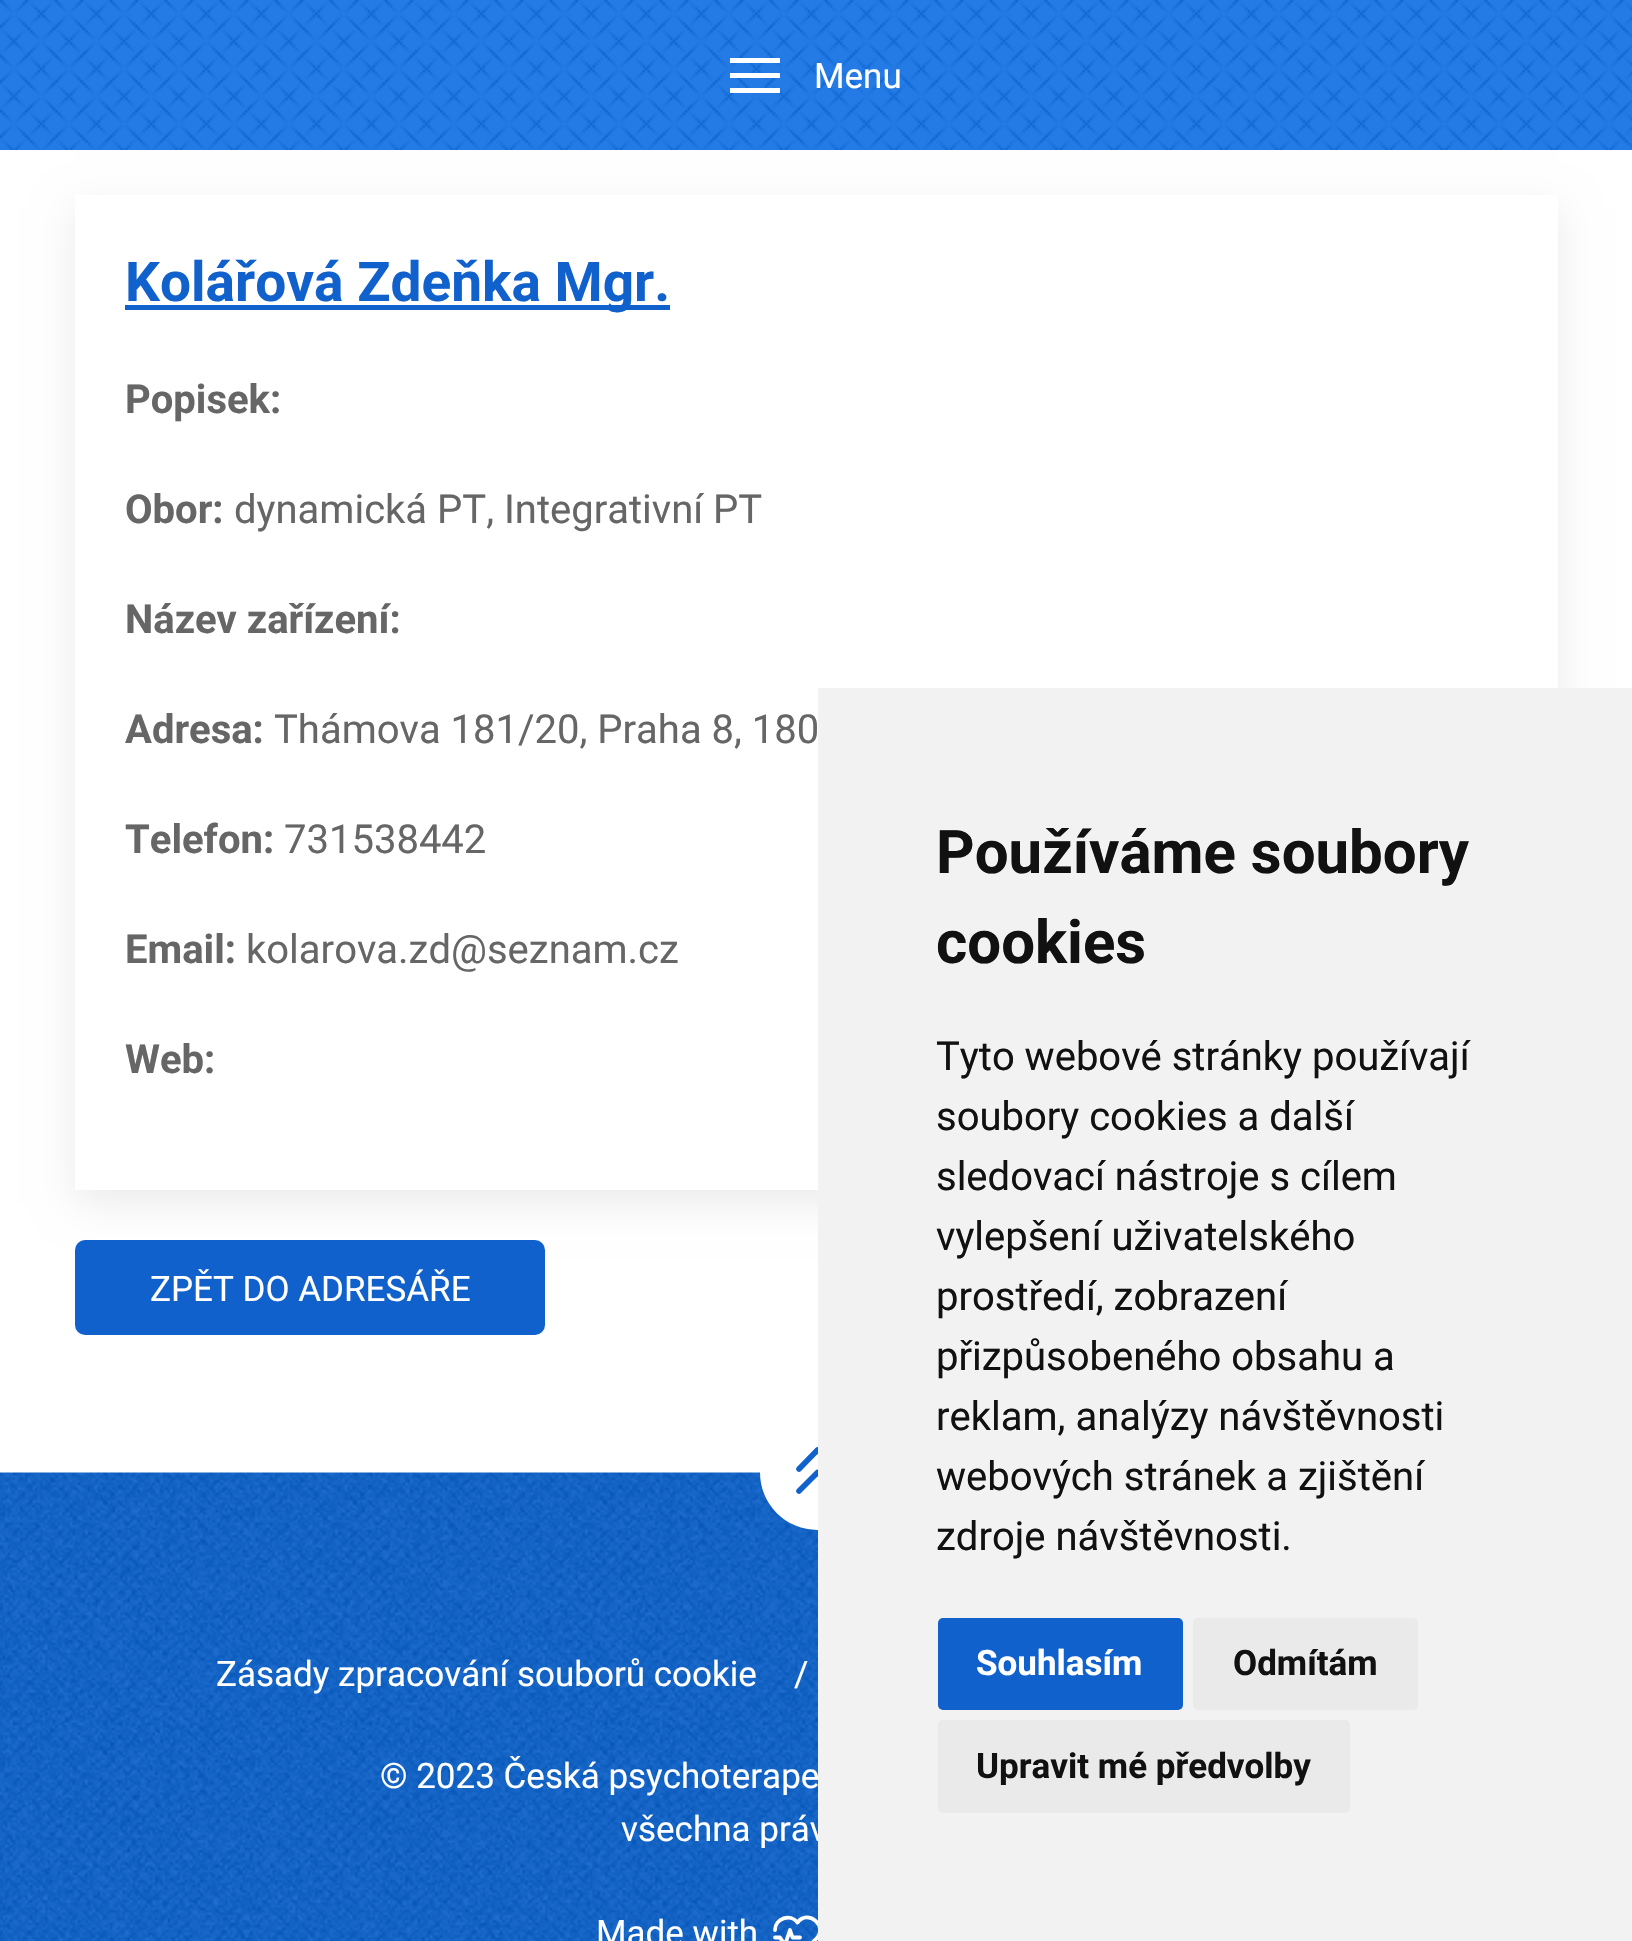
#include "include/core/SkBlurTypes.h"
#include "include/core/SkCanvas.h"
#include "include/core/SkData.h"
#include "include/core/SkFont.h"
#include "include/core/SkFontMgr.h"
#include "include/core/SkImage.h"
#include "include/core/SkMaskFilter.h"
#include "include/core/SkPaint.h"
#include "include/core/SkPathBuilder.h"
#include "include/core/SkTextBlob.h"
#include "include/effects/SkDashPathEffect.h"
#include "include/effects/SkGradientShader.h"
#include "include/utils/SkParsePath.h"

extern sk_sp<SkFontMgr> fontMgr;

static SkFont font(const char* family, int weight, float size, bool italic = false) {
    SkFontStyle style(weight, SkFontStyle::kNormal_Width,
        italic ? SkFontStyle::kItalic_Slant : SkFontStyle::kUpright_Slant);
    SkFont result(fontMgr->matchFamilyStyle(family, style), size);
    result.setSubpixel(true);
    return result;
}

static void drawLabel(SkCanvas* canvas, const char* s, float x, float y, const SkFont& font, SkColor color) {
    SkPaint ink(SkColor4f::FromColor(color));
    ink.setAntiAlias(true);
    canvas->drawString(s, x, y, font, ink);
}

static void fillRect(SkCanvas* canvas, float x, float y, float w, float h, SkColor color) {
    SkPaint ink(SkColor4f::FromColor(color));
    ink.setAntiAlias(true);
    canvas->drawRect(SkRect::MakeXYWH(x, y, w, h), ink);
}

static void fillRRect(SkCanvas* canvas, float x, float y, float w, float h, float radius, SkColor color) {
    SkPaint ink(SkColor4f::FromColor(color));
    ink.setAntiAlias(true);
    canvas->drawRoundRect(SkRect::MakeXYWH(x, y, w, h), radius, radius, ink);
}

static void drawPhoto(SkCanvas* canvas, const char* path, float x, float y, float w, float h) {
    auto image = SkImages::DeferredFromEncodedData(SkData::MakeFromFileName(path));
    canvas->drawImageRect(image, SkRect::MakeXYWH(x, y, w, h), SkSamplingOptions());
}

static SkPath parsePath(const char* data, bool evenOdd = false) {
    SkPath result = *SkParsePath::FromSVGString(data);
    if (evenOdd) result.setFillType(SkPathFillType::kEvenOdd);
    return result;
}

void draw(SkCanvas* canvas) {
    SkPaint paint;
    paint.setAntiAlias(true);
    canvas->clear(0xFFFFFFFF);
    drawPhoto(canvas, "assets/img1.png", 0, 0, 1632, 150);
    fillRect(canvas, 730, 58, 50, 5, 0xFFFFFFFF);
    fillRect(canvas, 730, 73, 50, 5, 0xFFFFFFFF);
    fillRect(canvas, 730, 88, 50, 5, 0xFFFFFFFF);
    SkFont font1 = font("Roboto", 400, 35);
    drawLabel(canvas, "Menu", 814, 88, font1, 0xFFFFFFFF);
    fillRRect(canvas, 75, 1240, 470, 95, 10, 0xFF1061CC);
    paint.setColor(0x14000000);
    paint.setMaskFilter(SkMaskFilter::MakeBlur(kNormal_SkBlurStyle, 19));
    canvas->drawRect(SkRect::MakeXYWH(75, 208, 1483, 995), paint);
    paint.setMaskFilter(nullptr);
    fillRect(canvas, 75, 195, 1483, 995, 0xFFFFFFFF);
    fillRect(canvas, 125, 305, 545, 5, 0xFF1061CC);
    SkFont font2 = font("Roboto", 700, 55);
    drawLabel(canvas, "Kolářová Zdeňka Mgr.", 125, 301, font2, 0xFF1061CC);
    SkFont font3 = font("Roboto", 700, 40);
    drawLabel(canvas, "Popisek:", 125, 413, font3, 0xFF666666);
    drawLabel(canvas, "Obor:", 125, 523, font3, 0xFF666666);
    SkFont font4 = font("Roboto", 400, 40);
    drawLabel(canvas, "dynamická PT, Integrativní PT", 234, 523, font4, 0xFF666666);
    drawLabel(canvas, "Název zařízení:", 125, 633, font3, 0xFF666666);
    drawLabel(canvas, "Adresa:", 125, 743, font3, 0xFF666666);
    drawLabel(canvas, "Thámova 181/20, Praha 8, 180", 274, 743, font4, 0xFF666666);
    drawLabel(canvas, "Telefon:", 125, 853, font3, 0xFF666666);
    drawLabel(canvas, "731538442", 284, 853, font4, 0xFF666666);
    drawLabel(canvas, "Email:", 125, 963, font3, 0xFF666666);
    drawLabel(canvas, "kolarova.zd@seznam.cz", 246, 963, font4, 0xFF666666);
    drawLabel(canvas, "Web:", 125, 1073, font3, 0xFF666666);
    drawLabel(canvas, "ZPĚT DO ADRESÁŘE", 150, 1301, font1, 0xFFFFFFFF);
    drawPhoto(canvas, "assets/img2.png", 0, 1472, 818, 469);
    paint.setColor(0xFFFFFFFF);
    canvas->drawCircle(817.5f, 1472.5f, 57.5f, paint);
    paint.setStroke(true);
    paint.setStrokeWidth(5.6f);
    paint.setStrokeCap(SkPaint::kRound_Cap);
    paint.setStrokeJoin(SkPaint::kRound_Join);
    paint.setColor(0xFF1061CC);
    canvas->drawPath(parsePath("M799 1469L817.5 1450L836 1469M799 1491L817.5 1472.5L836 1491"), paint);
    drawLabel(canvas, "Zásady zpracování souborů cookie", 216, 1686, font1, 0xFFFFFFFF);
    drawLabel(canvas, "/", 794, 1686, font1, 0xFFFFFFFF);
    drawLabel(canvas, "© 2023 Česká psychoterape", 380, 1788, font1, 0xFFFFFFFF);
    drawLabel(canvas, "všechna práv", 621, 1841, font1, 0xFFFFFFFF);
    drawLabel(canvas, "Made with", 596, 1945, font1, 0xFFFFFFFF);
    paint.setStrokeWidth(3.8f);
    paint.setColor(0xFFFFFFFF);
    canvas->drawPath(parsePath("M816 1939L797.5 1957.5L790.5 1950.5M775 1930C775 1918.5 790.5 1913 797.5 1922.5C808 1908.5 829 1926.5 816 1939M775 1937.5H780L785 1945L790 1930L792.5 1937.5H800"), paint);
    fillRect(canvas, 818, 688, 814, 1253, 0xFFF2F2F2);
    SkFont font5 = font("Roboto", 700, 60);
    drawLabel(canvas, "Používáme soubory", 936, 873, font5, 0xFF111111);
    drawLabel(canvas, "cookies", 936, 963, font5, 0xFF111111);
    drawLabel(canvas, "Tyto webové stránky používají", 936, 1070, font4, 0xFF111111);
    drawLabel(canvas, "soubory cookies a další", 936, 1130, font4, 0xFF111111);
    drawLabel(canvas, "sledovací nástroje s cílem", 936, 1190, font4, 0xFF111111);
    drawLabel(canvas, "vylepšení uživatelského", 936, 1250, font4, 0xFF111111);
    drawLabel(canvas, "prostředí, zobrazení", 936, 1310, font4, 0xFF111111);
    drawLabel(canvas, "přizpůsobeného obsahu a", 936, 1370, font4, 0xFF111111);
    drawLabel(canvas, "reklam, analýzy návštěvnosti", 936, 1430, font4, 0xFF111111);
    drawLabel(canvas, "webových stránek a zjištění", 936, 1490, font4, 0xFF111111);
    drawLabel(canvas, "zdroje návštěvnosti.", 936, 1550, font4, 0xFF111111);
    fillRRect(canvas, 938, 1618, 245, 92, 5, 0xFF1061CC);
    SkFont font6 = font("Roboto", 700, 35);
    drawLabel(canvas, "Souhlasím", 976, 1675, font6, 0xFFFFFFFF);
    fillRRect(canvas, 1193, 1618, 225, 92, 5, 0xFFEAEAEA);
    drawLabel(canvas, "Odmítám", 1233, 1675, font6, 0xFF111111);
    fillRRect(canvas, 938, 1720, 412, 93, 5, 0xFFEAEAEA);
    drawLabel(canvas, "Upravit mé předvolby", 976, 1778, font6, 0xFF111111);
}
